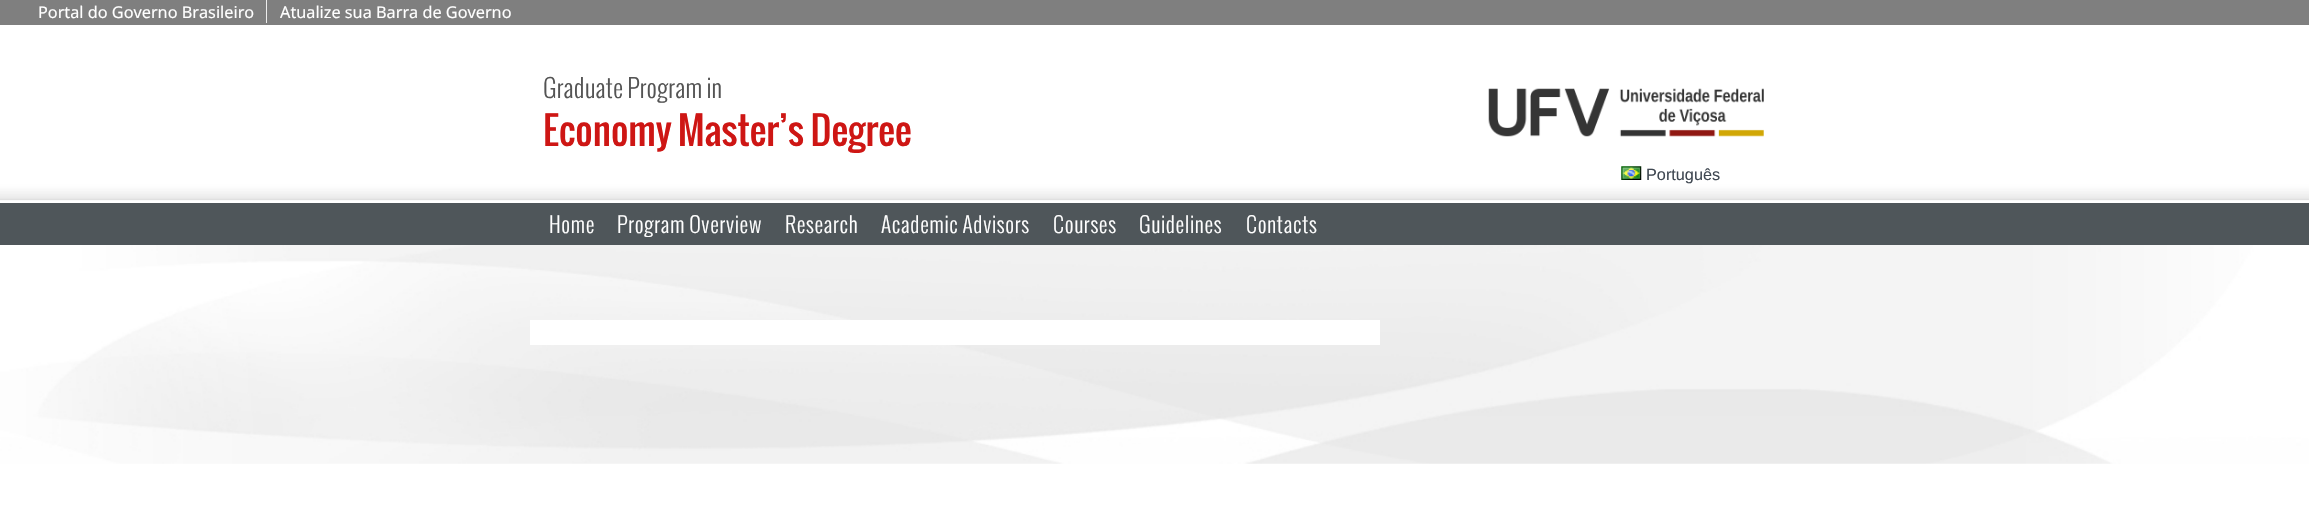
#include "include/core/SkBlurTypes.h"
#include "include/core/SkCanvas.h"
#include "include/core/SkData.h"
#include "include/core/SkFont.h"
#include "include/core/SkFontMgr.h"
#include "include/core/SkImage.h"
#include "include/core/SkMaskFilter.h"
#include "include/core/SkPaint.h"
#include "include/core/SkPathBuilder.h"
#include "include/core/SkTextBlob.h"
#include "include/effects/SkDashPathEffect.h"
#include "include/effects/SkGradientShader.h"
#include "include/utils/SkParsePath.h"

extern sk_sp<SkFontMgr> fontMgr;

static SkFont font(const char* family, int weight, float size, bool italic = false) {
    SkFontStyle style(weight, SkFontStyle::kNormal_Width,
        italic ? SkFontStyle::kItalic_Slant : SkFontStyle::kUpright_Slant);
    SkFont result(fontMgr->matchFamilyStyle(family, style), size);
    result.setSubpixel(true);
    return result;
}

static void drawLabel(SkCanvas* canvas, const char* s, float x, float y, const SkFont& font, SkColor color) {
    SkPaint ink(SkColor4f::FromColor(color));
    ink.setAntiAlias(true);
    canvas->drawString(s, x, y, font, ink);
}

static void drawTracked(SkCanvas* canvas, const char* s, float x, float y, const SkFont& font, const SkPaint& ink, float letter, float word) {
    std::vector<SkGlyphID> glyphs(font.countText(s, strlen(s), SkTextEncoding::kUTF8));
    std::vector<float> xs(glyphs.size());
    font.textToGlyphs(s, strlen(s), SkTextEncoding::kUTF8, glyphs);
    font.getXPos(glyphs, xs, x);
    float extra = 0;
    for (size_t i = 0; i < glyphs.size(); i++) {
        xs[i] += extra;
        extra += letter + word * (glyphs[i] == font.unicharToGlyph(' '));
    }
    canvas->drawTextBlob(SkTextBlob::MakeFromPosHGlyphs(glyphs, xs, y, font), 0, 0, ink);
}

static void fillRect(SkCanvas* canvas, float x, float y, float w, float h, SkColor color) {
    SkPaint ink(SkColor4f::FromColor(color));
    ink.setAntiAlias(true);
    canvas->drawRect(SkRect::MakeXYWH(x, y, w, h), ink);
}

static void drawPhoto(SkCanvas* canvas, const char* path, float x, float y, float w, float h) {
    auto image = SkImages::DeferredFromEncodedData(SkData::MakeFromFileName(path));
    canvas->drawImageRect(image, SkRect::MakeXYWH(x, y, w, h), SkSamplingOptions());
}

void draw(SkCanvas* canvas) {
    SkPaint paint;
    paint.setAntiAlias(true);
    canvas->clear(0xFFFFFFFF);
    fillRect(canvas, 0, 0, 2309, 25, 0xFF7F7F7F);
    fillRect(canvas, 266, 0, 1, 23, 0xFFEDEDED);
    SkFont font1 = font("Noto Sans", 400, 16.25f);
    drawLabel(canvas, "Portal do Governo Brasileiro", 38, 18, font1, 0xFFFFFFFF);
    drawLabel(canvas, "Atualize sua Barra de Governo", 280, 18, font1, 0xFFFFFFFF);
    drawPhoto(canvas, "assets/img1.png", 0, 41, 2309, 423);
    SkFont font2 = font("Oswald", 300, 25);
    drawLabel(canvas, "Graduate Program in", 543, 98, font2, 0xFF545454);
    SkFont font3 = font("Oswald", 400, 37.5f);
    drawLabel(canvas, "Economy Master’s Degree", 543, 146, font3, 0xFFCE1614);
    drawPhoto(canvas, "assets/img2.png", 1488, 88, 276, 49);
    drawPhoto(canvas, "assets/img3.png", 1621, 166, 21, 14);
    SkFont font4 = font("Liberation Sans", 400, 16.25f);
    drawLabel(canvas, "Português", 1646, 180, font4, 0xFF404852);
    fillRect(canvas, 0, 203, 2309, 42, 0xFF4F565A);
    SkFont font5 = font("Oswald", 300, 21.25f);
    paint.setColor(0xFFFFFFFF);
    drawTracked(canvas, "Home", 549, 233, font5, paint, 0.6f, 0);
    drawTracked(canvas, "Program Overview", 617, 233, font5, paint, 0.6f, 0);
    drawTracked(canvas, "Research", 785, 233, font5, paint, 0.6f, 0);
    drawTracked(canvas, "Academic Advisors", 881, 233, font5, paint, 0.6f, 0);
    drawTracked(canvas, "Courses", 1053, 233, font5, paint, 0.6f, 0);
    drawTracked(canvas, "Guidelines", 1139, 233, font5, paint, 0.6f, 0);
    drawTracked(canvas, "Contacts", 1246, 233, font5, paint, 0.6f, 0);
    fillRect(canvas, 530, 320, 850, 25, 0xFFFFFFFF);
}
